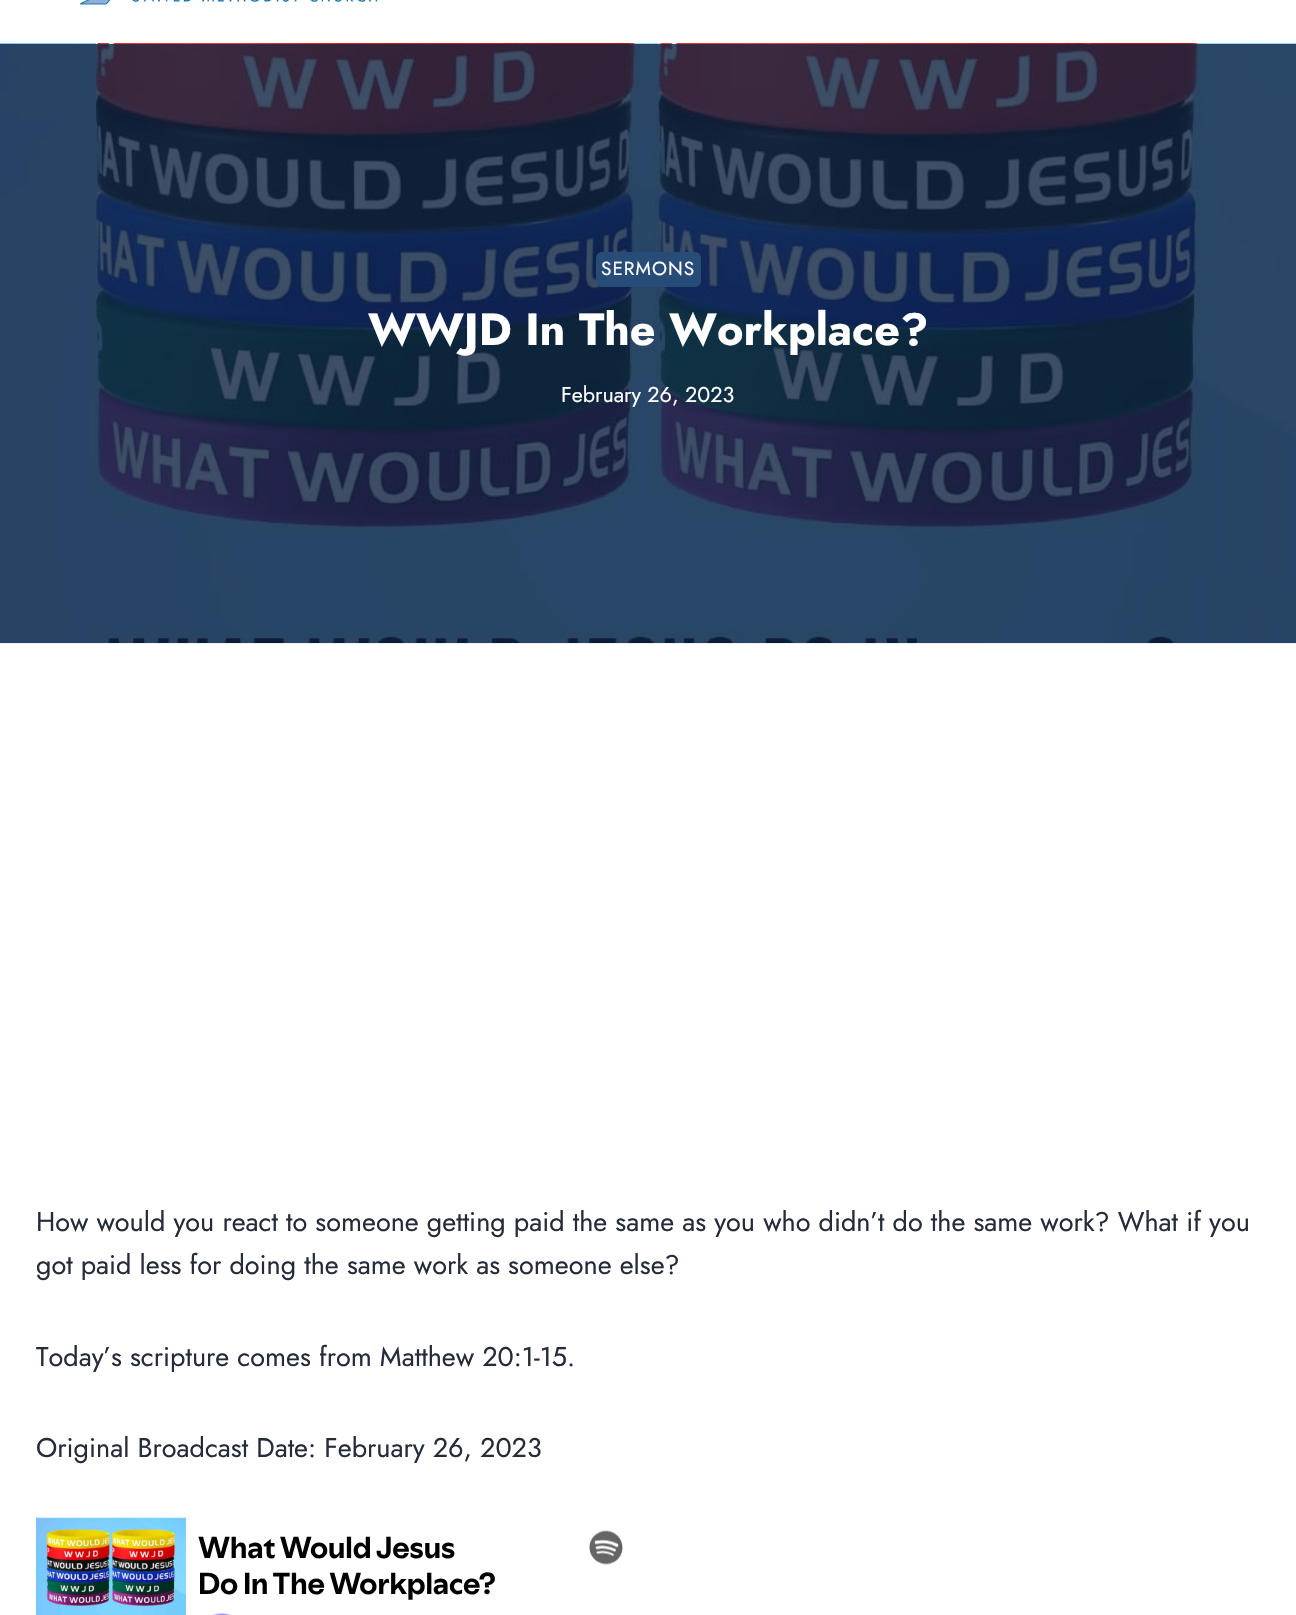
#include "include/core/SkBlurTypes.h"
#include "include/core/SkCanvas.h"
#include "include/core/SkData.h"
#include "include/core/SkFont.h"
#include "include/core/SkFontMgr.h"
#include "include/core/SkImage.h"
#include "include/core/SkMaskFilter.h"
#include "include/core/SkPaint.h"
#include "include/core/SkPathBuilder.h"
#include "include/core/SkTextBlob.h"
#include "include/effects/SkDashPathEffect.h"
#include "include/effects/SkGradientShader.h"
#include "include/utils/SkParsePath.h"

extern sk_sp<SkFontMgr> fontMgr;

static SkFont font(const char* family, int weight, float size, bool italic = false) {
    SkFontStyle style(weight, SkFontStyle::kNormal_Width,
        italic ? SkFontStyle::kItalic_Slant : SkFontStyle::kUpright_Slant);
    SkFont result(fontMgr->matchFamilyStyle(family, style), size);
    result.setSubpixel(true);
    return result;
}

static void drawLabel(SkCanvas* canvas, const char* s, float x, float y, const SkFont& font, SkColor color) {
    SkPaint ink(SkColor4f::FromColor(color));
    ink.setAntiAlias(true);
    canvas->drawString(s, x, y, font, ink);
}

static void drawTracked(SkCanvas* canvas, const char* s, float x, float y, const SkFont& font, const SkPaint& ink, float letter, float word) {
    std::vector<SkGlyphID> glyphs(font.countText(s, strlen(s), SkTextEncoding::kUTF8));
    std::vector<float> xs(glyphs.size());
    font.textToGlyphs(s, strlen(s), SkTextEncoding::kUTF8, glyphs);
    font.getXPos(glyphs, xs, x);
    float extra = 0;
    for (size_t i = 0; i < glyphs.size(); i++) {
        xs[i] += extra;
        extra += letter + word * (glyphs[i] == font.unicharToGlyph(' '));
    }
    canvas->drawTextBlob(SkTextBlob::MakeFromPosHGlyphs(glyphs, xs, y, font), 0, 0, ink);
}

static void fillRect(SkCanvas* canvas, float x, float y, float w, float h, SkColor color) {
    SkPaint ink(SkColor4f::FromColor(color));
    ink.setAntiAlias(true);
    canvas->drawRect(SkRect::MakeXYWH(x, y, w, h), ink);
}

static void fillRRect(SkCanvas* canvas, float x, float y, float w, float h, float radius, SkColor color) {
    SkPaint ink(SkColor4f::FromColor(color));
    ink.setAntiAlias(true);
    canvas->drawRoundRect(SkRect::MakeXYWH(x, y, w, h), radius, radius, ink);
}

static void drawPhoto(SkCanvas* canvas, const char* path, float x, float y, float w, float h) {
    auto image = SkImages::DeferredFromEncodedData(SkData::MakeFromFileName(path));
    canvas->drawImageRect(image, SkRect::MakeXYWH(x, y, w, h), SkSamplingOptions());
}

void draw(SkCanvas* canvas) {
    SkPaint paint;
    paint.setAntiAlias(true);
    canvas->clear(0xFFFFFFFF);
    drawPhoto(canvas, "assets/img1.png", 79, 0, 299, 5);
    fillRect(canvas, 0, 643, 1296, 1, 0xFFEDF2F7);
    drawPhoto(canvas, "assets/img2.png", 0, 43, 1296, 600);
    fillRRect(canvas, 596, 252, 105, 35, 6, 0xFF274C77);
    SkFont font1 = font("Jost", 400, 19);
    paint.setColor(0xFFFFFFFF);
    drawTracked(canvas, "SERMONS", 601, 275, font1, paint, 1, 0);
    SkFont font2 = font("Jost", 700, 45);
    drawLabel(canvas, "WWJD In The Workplace?", 368, 345, font2, 0xFFFFFFFF);
    SkFont font3 = font("Jost", 400, 21.5f);
    drawLabel(canvas, "February 26, 2023", 561, 402, font3, 0xFFFFFFFF);
    SkFont font4 = font("Jost", 400, 27);
    drawLabel(canvas, "How would you react to someone getting paid the same as you who didn’t do the same work? What if you", 36, 1231, font4, 0xFF252C39);
    drawLabel(canvas, "got paid less for doing the same work as someone else?", 36, 1274, font4, 0xFF252C39);
    drawLabel(canvas, "Today’s scripture comes from Matthew 20:1-15.", 36, 1366, font4, 0xFF252C39);
    drawLabel(canvas, "Original Broadcast Date: February 26, 2023", 36, 1457, font4, 0xFF252C39);
    drawPhoto(canvas, "assets/img3.png", 36, 1517, 587, 98);
}
